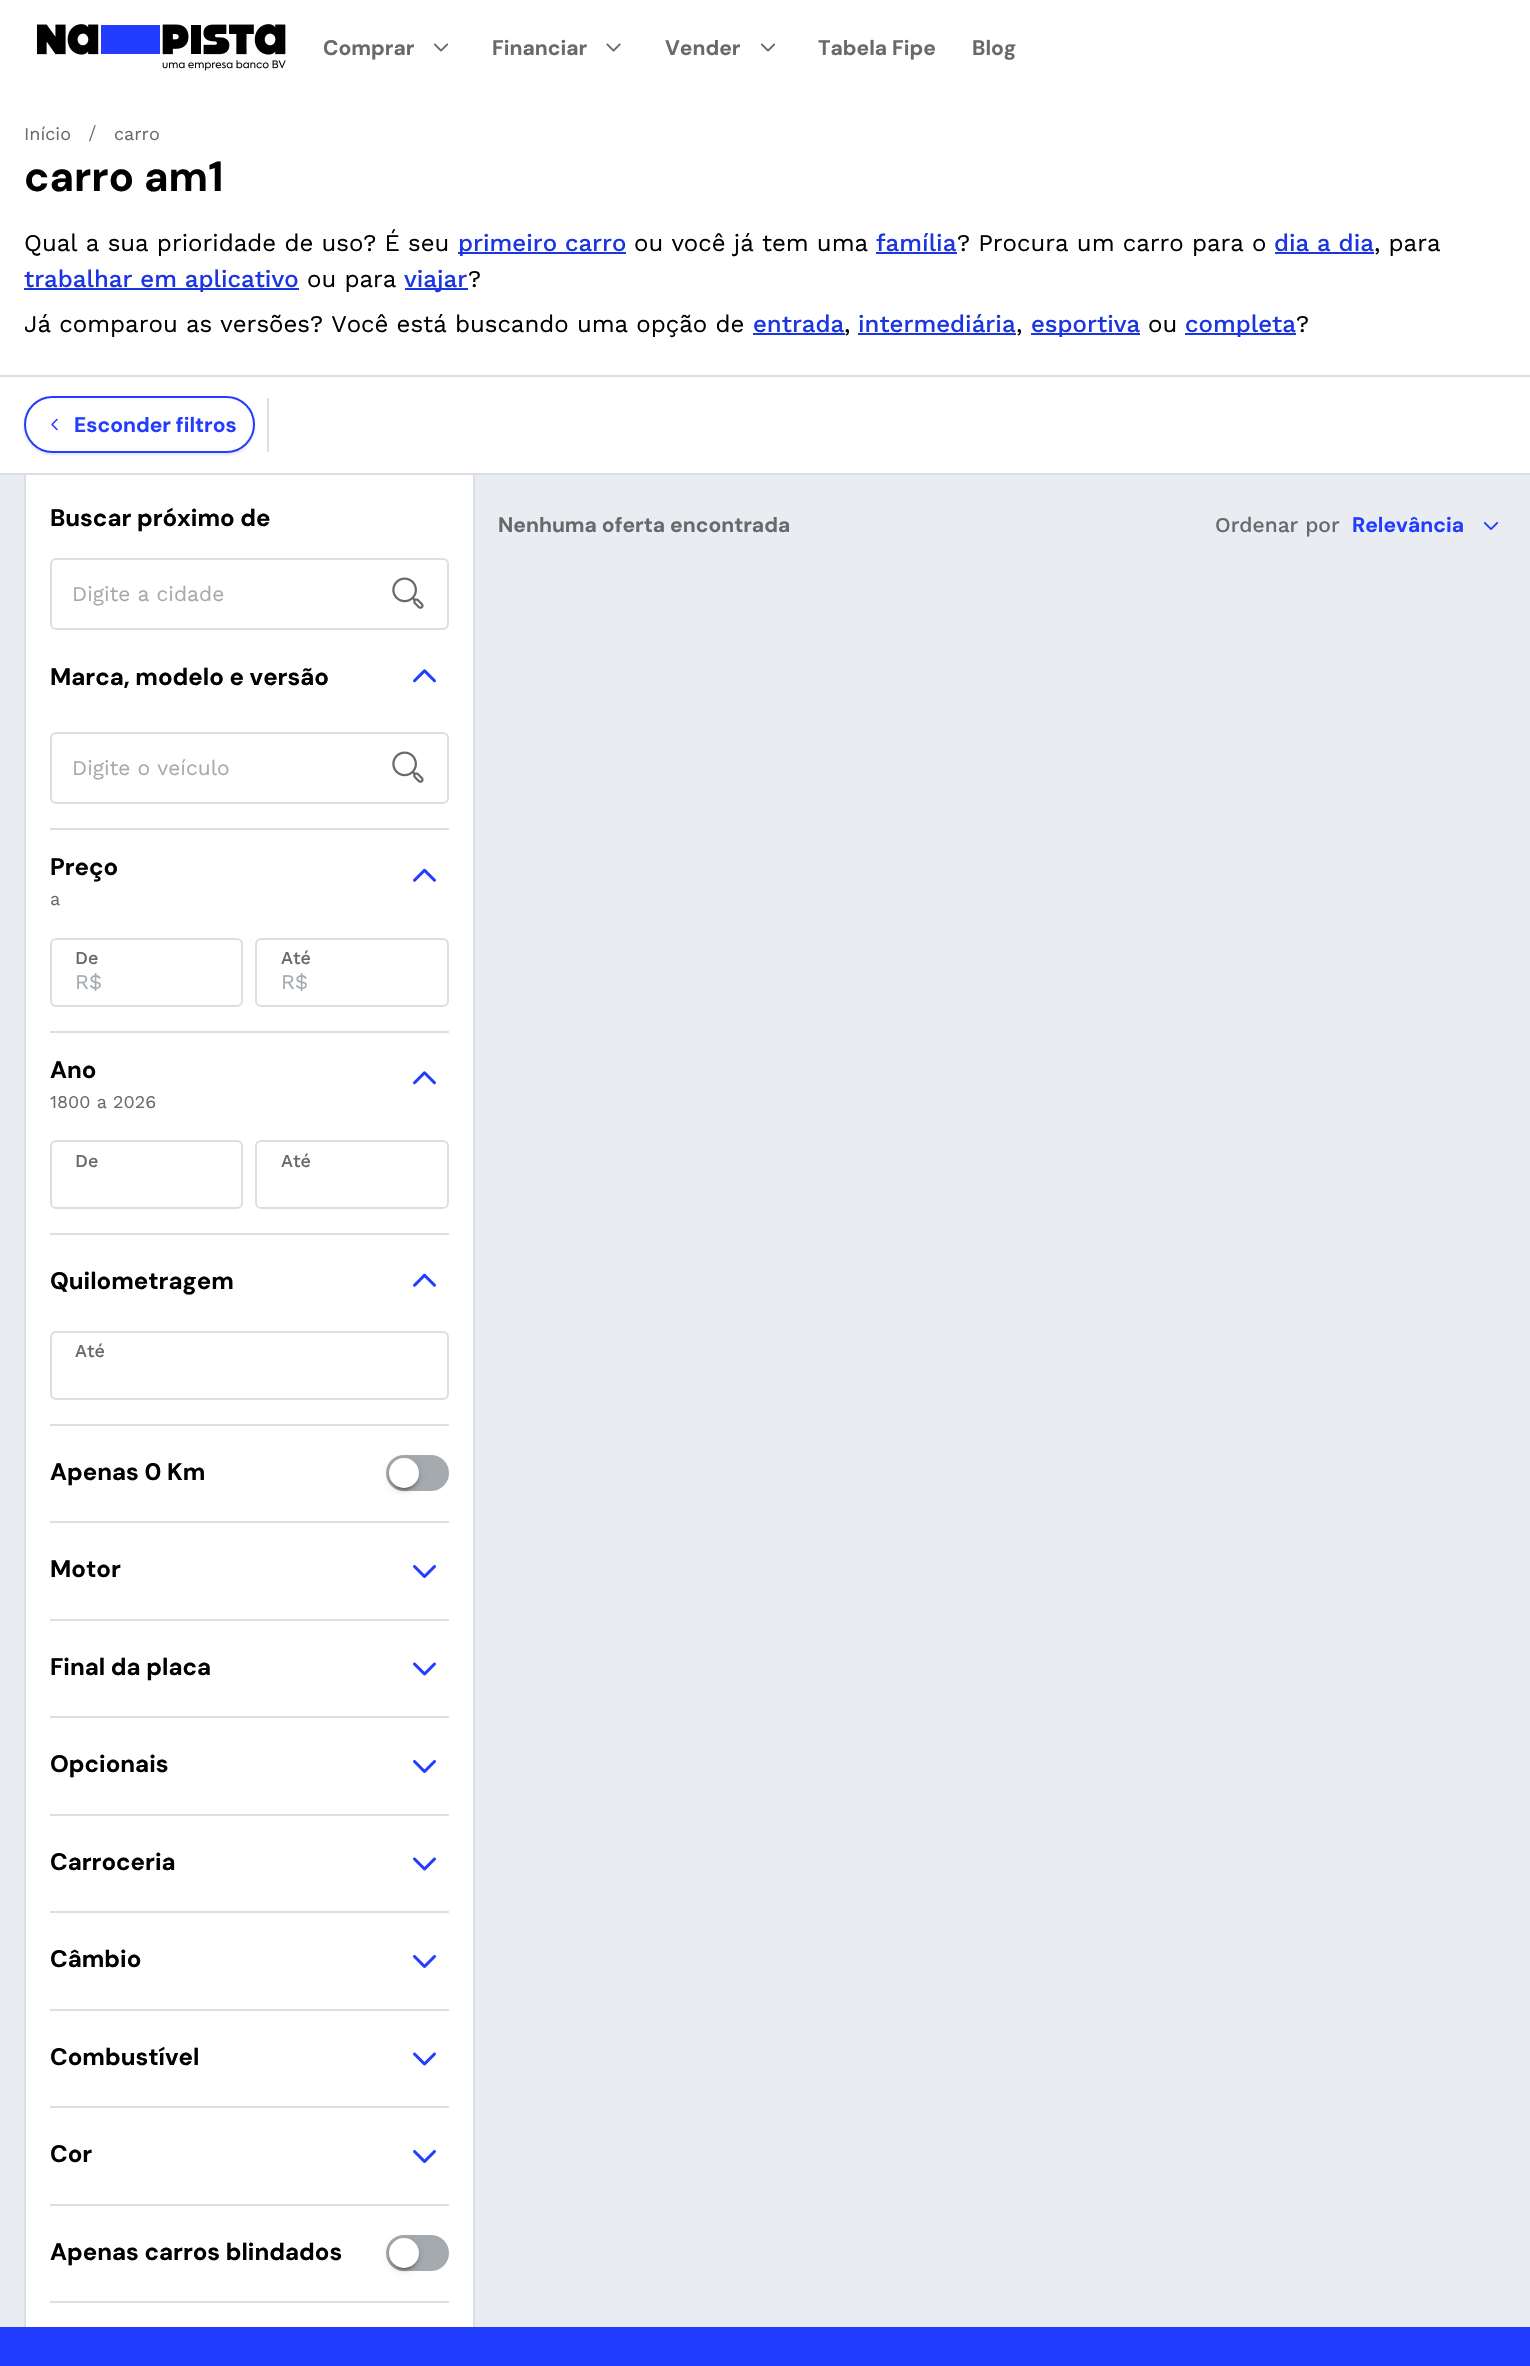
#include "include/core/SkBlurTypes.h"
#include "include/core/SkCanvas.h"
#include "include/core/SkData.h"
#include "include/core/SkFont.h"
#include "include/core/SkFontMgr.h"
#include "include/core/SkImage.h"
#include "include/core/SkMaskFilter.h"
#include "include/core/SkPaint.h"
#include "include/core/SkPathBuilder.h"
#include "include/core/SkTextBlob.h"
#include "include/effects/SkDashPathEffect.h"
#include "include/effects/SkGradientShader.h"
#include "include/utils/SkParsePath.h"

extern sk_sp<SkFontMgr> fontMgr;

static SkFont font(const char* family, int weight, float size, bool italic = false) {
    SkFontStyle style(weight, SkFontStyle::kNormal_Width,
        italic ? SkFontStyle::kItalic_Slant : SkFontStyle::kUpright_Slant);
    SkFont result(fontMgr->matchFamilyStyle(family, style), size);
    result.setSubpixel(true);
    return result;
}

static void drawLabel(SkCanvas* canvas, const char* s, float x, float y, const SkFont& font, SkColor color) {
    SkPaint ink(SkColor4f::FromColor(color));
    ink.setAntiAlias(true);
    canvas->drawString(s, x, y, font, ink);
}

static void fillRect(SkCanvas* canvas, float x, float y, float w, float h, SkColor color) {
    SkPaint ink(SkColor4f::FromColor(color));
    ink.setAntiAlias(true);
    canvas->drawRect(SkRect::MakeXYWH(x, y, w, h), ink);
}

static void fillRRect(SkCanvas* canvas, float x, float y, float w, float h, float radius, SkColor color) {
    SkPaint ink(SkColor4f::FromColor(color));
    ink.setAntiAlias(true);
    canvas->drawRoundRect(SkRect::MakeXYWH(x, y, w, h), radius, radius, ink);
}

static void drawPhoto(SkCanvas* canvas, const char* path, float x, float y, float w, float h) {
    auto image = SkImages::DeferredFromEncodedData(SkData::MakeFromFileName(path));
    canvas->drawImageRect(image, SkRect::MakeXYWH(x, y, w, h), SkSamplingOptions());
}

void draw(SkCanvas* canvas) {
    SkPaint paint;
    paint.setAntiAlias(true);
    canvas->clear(0xFFFFFFFF);
    drawPhoto(canvas, "assets/img1.png", 37, 24, 249, 47);
    SkFont font1 = font("DM Sans", 700, 21);
    drawLabel(canvas, "Comprar", 323, 55, font1, 0xFF67696B);
    drawPhoto(canvas, "assets/img2.png", 433, 43, 16, 9);
    drawLabel(canvas, "Financiar", 492, 55, font1, 0xFF67696B);
    drawPhoto(canvas, "assets/img3.png", 606, 43, 15, 9);
    drawLabel(canvas, "Vender", 665, 55, font1, 0xFF67696B);
    drawPhoto(canvas, "assets/img2.png", 760, 43, 16, 9);
    drawLabel(canvas, "Tabela Fipe", 818, 55, font1, 0xFF67696B);
    drawLabel(canvas, "Blog", 972, 55, font1, 0xFF67696B);
    SkFont font2 = font("Work Sans", 400, 18);
    drawLabel(canvas, "Início", 24, 140, font2, 0xFF67696B);
    SkFont font3 = font("Liberation Serif", 400, 24);
    drawLabel(canvas, "/", 89, 141, font3, 0xFF67696B);
    drawLabel(canvas, "carro", 114, 140, font2, 0xFF67696B);
    SkFont font4 = font("DM Sans", 700, 42);
    drawLabel(canvas, "carro am1", 24, 191, font4, 0xFF000000);
    SkFont font5 = font("Work Sans", 400, 24);
    drawLabel(canvas, "Qual a sua prioridade de uso? É seu", 24, 251, font5, 0xFF000000);
    fillRect(canvas, 458, 252, 168, 2, 0xFF1B35E1);
    SkFont font6 = font("Work Sans", 500, 24);
    drawLabel(canvas, "primeiro carro", 458, 251, font6, 0xFF1B35E1);
    drawLabel(canvas, "ou você já tem uma", 634, 251, font5, 0xFF000000);
    drawLabel(canvas, "família", 876, 251, font6, 0xFF1B35E1);
    fillRect(canvas, 876, 252, 81, 2, 0xFF1B35E1);
    drawLabel(canvas, "? Procura um carro para o", 957, 251, font5, 0xFF000000);
    drawLabel(canvas, "dia a dia", 1274, 251, font6, 0xFF1B35E1);
    fillRect(canvas, 1275, 252, 99, 2, 0xFF1B35E1);
    drawLabel(canvas, ", para", 1374, 251, font5, 0xFF000000);
    fillRect(canvas, 24, 288, 275, 2, 0xFF1B35E1);
    drawLabel(canvas, "trabalhar em aplicativo", 24, 287, font6, 0xFF1B35E1);
    drawLabel(canvas, "ou para", 307, 287, font5, 0xFF000000);
    fillRect(canvas, 405, 288, 63, 2, 0xFF1B35E1);
    drawLabel(canvas, "viajar", 404, 287, font6, 0xFF1B35E1);
    drawLabel(canvas, "?", 468, 287, font5, 0xFF000000);
    drawLabel(canvas, "Já comparou as versões? Você está buscando uma opção de", 24, 332, font5, 0xFF000000);
    drawLabel(canvas, "entrada", 753, 332, font6, 0xFF1B35E1);
    fillRect(canvas, 753, 333, 92, 2, 0xFF1B35E1);
    drawLabel(canvas, ",", 844, 332, font5, 0xFF000000);
    drawLabel(canvas, "intermediária", 858, 332, font6, 0xFF1B35E1);
    fillRect(canvas, 858, 333, 158, 2, 0xFF1B35E1);
    drawLabel(canvas, ",", 1016, 332, font5, 0xFF000000);
    fillRect(canvas, 1031, 333, 109, 2, 0xFF1B35E1);
    drawLabel(canvas, "esportiva", 1031, 332, font6, 0xFF1B35E1);
    drawLabel(canvas, "ou", 1148, 332, font5, 0xFF000000);
    fillRect(canvas, 1185, 333, 111, 2, 0xFF1B35E1);
    drawLabel(canvas, "completa", 1185, 332, font6, 0xFF1B35E1);
    drawLabel(canvas, "?", 1296, 332, font5, 0xFF000000);
    fillRect(canvas, 0, 375, 1530, 2, 0xFFDADFE5);
    fillRect(canvas, 0, 475, 1530, 1852, 0xFFE9EDF2);
    fillRect(canvas, 473, 474, 2, 1853, 0xFFDADFE5);
    fillRect(canvas, 24, 474, 2, 1853, 0xFFDADFE5);
    fillRect(canvas, 0, 473, 1530, 2, 0xFFDADFE5);
    paint.setColor(0x1F091868);
    paint.setMaskFilter(SkMaskFilter::MakeBlur(kNormal_SkBlurStyle, 1.5f));
    canvas->drawRoundRect(SkRect::MakeXYWH(24, 398, 231, 57), 28.5f, 28.5f, paint);
    paint.setMaskFilter(nullptr);
    paint.setColor(0xFFFFFFFF);
    canvas->drawRoundRect(SkRect::MakeXYWH(25, 397, 229, 55), 27.5f, 27.5f, paint);
    paint.setStroke(true);
    paint.setStrokeWidth(2);
    paint.setColor(0xFF223DFF);
    canvas->drawRoundRect(SkRect::MakeXYWH(25, 397, 229, 55), 27.5f, 27.5f, paint);
    drawPhoto(canvas, "assets/img4.png", 51, 418, 7, 13);
    drawLabel(canvas, "Esconder filtros", 74, 432, font1, 0xFF223DFF);
    fillRect(canvas, 267, 398, 2, 54, 0xFFDADFE5);
    fillRect(canvas, 26, 475, 447, 1852, 0xFFFFFFFF);
    SkFont font7 = font("DM Sans", 700, 24);
    drawLabel(canvas, "Buscar próximo de", 50, 526, font7, 0xFF000000);
    paint.setColor(0xFFDADFE5);
    canvas->drawRoundRect(SkRect::MakeXYWH(51, 559, 397, 70), 5, 5, paint);
    SkFont font8 = font("Work Sans", 400, 21);
    drawLabel(canvas, "Digite a cidade", 72, 601, font8, 0xFFA5AAAF);
    drawPhoto(canvas, "assets/img5.png", 392, 577, 32, 32);
    fillRect(canvas, 50, 828, 399, 2, 0xFFDADFE5);
    drawLabel(canvas, "Marca, modelo e versão", 50, 685, font7, 0xFF000000);
    drawPhoto(canvas, "assets/img6.png", 413, 669, 23, 14);
    canvas->drawRoundRect(SkRect::MakeXYWH(51, 733, 397, 70), 5, 5, paint);
    drawLabel(canvas, "Digite o veículo", 72, 775, font8, 0xFFA5AAAF);
    drawPhoto(canvas, "assets/img5.png", 392, 751, 32, 32);
    fillRect(canvas, 50, 1031, 399, 2, 0xFFDADFE5);
    drawLabel(canvas, "Preço", 50, 875, font7, 0xFF000000);
    drawLabel(canvas, "a", 50, 905, font2, 0xFF67696B);
    drawPhoto(canvas, "assets/img7.png", 413, 868, 23, 14);
    canvas->drawRoundRect(SkRect::MakeXYWH(51, 939, 191, 67), 5, 5, paint);
    SkFont font9 = font("Work Sans", 500, 18);
    drawLabel(canvas, "De", 75, 964, font9, 0xFF67696B);
    drawLabel(canvas, "R$", 75, 989, font8, 0xFFA5AAAF);
    canvas->drawRoundRect(SkRect::MakeXYWH(256, 939, 192, 67), 5, 5, paint);
    drawLabel(canvas, "Até", 281, 964, font9, 0xFF67696B);
    drawLabel(canvas, "R$", 281, 989, font8, 0xFFA5AAAF);
    fillRect(canvas, 50, 1233, 399, 2, 0xFFDADFE5);
    drawLabel(canvas, "Ano", 50, 1078, font7, 0xFF000000);
    drawLabel(canvas, "1800 a 2026", 50, 1108, font2, 0xFF67696B);
    drawPhoto(canvas, "assets/img6.png", 413, 1071, 23, 14);
    canvas->drawRoundRect(SkRect::MakeXYWH(51, 1141, 191, 67), 5, 5, paint);
    drawLabel(canvas, "De", 75, 1167, font9, 0xFF67696B);
    canvas->drawRoundRect(SkRect::MakeXYWH(256, 1141, 192, 67), 5, 5, paint);
    drawLabel(canvas, "Até", 281, 1167, font9, 0xFF67696B);
    fillRect(canvas, 50, 1424, 399, 2, 0xFFDADFE5);
    drawLabel(canvas, "Quilometragem", 50, 1289, font7, 0xFF000000);
    drawPhoto(canvas, "assets/img7.png", 413, 1273, 23, 14);
    canvas->drawRoundRect(SkRect::MakeXYWH(51, 1332, 397, 67), 5, 5, paint);
    drawLabel(canvas, "Até", 75, 1357, font9, 0xFF67696B);
    fillRect(canvas, 50, 1521, 399, 2, 0xFFDADFE5);
    drawLabel(canvas, "Apenas 0 Km", 50, 1480, font7, 0xFF000000);
    fillRRect(canvas, 386, 1455, 63, 36, 18, 0xFFA5AAAF);
    paint.setStroke(false);
    paint.setColor(0x1F000000);
    paint.setMaskFilter(SkMaskFilter::MakeBlur(kNormal_SkBlurStyle, 4));
    canvas->drawRoundRect(SkRect::MakeXYWH(389, 1460, 30, 30), 15, 15, paint);
    paint.setMaskFilter(nullptr);
    paint.setColor(0x24000000);
    paint.setMaskFilter(SkMaskFilter::MakeBlur(kNormal_SkBlurStyle, 1.5f));
    canvas->drawRoundRect(SkRect::MakeXYWH(389, 1461, 30, 30), 15, 15, paint);
    paint.setMaskFilter(nullptr);
    paint.setColor(0x33000000);
    paint.setMaskFilter(SkMaskFilter::MakeBlur(kNormal_SkBlurStyle, 1));
    canvas->drawRoundRect(SkRect::MakeXYWH(392, 1466, 24, 24), 12, 12, paint);
    paint.setMaskFilter(nullptr);
    paint.setColor(0xFFFFFFFF);
    canvas->drawCircle(404, 1473, 15, paint);
    fillRect(canvas, 50, 1619, 399, 2, 0xFFDADFE5);
    drawLabel(canvas, "Motor", 50, 1577, font7, 0xFF000000);
    drawPhoto(canvas, "assets/img8.png", 413, 1565, 23, 13);
    fillRect(canvas, 50, 1716, 399, 2, 0xFFDADFE5);
    drawLabel(canvas, "Final da placa", 50, 1675, font7, 0xFF000000);
    drawPhoto(canvas, "assets/img9.png", 413, 1662, 23, 14);
    fillRect(canvas, 50, 1814, 399, 2, 0xFFDADFE5);
    drawLabel(canvas, "Opcionais", 50, 1772, font7, 0xFF000000);
    drawPhoto(canvas, "assets/img8.png", 413, 1760, 23, 13);
    fillRect(canvas, 50, 1911, 399, 2, 0xFFDADFE5);
    drawLabel(canvas, "Carroceria", 50, 1870, font7, 0xFF000000);
    drawPhoto(canvas, "assets/img9.png", 413, 1857, 23, 14);
    fillRect(canvas, 50, 2009, 399, 2, 0xFFDADFE5);
    drawLabel(canvas, "Câmbio", 50, 1967, font7, 0xFF000000);
    drawPhoto(canvas, "assets/img8.png", 413, 1955, 23, 13);
    fillRect(canvas, 50, 2106, 399, 2, 0xFFDADFE5);
    drawLabel(canvas, "Combustível", 50, 2065, font7, 0xFF000000);
    drawPhoto(canvas, "assets/img9.png", 413, 2052, 23, 14);
    fillRect(canvas, 50, 2204, 399, 2, 0xFFDADFE5);
    drawLabel(canvas, "Cor", 50, 2162, font7, 0xFF000000);
    drawPhoto(canvas, "assets/img8.png", 413, 2150, 23, 13);
    fillRect(canvas, 50, 2301, 399, 2, 0xFFDADFE5);
    drawLabel(canvas, "Apenas carros blindados", 50, 2260, font7, 0xFF000000);
    fillRRect(canvas, 386, 2235, 63, 36, 18, 0xFFA5AAAF);
    paint.setColor(0x1F000000);
    paint.setMaskFilter(SkMaskFilter::MakeBlur(kNormal_SkBlurStyle, 4));
    canvas->drawRoundRect(SkRect::MakeXYWH(389, 2240, 30, 30), 15, 15, paint);
    paint.setMaskFilter(nullptr);
    paint.setColor(0x24000000);
    paint.setMaskFilter(SkMaskFilter::MakeBlur(kNormal_SkBlurStyle, 1.5f));
    canvas->drawRoundRect(SkRect::MakeXYWH(389, 2241, 30, 30), 15, 15, paint);
    paint.setMaskFilter(nullptr);
    paint.setColor(0x33000000);
    paint.setMaskFilter(SkMaskFilter::MakeBlur(kNormal_SkBlurStyle, 1));
    canvas->drawRoundRect(SkRect::MakeXYWH(392, 2246, 24, 24), 12, 12, paint);
    paint.setMaskFilter(nullptr);
    paint.setColor(0xFFFFFFFF);
    canvas->drawCircle(404, 2253, 15, paint);
    drawLabel(canvas, "Nenhuma oferta encontrada", 498, 532, font1, 0xFF67696B);
    SkFont font10 = font("Work Sans", 500, 21);
    drawLabel(canvas, "Ordenar por", 1215, 532, font10, 0xFF67696B);
    drawLabel(canvas, "Relevância", 1352, 532, font1, 0xFF223DFF);
    drawPhoto(canvas, "assets/img10.png", 1483, 522, 16, 8);
    fillRect(canvas, 0, 2327, 1530, 39, 0xFF223DFF);
}
